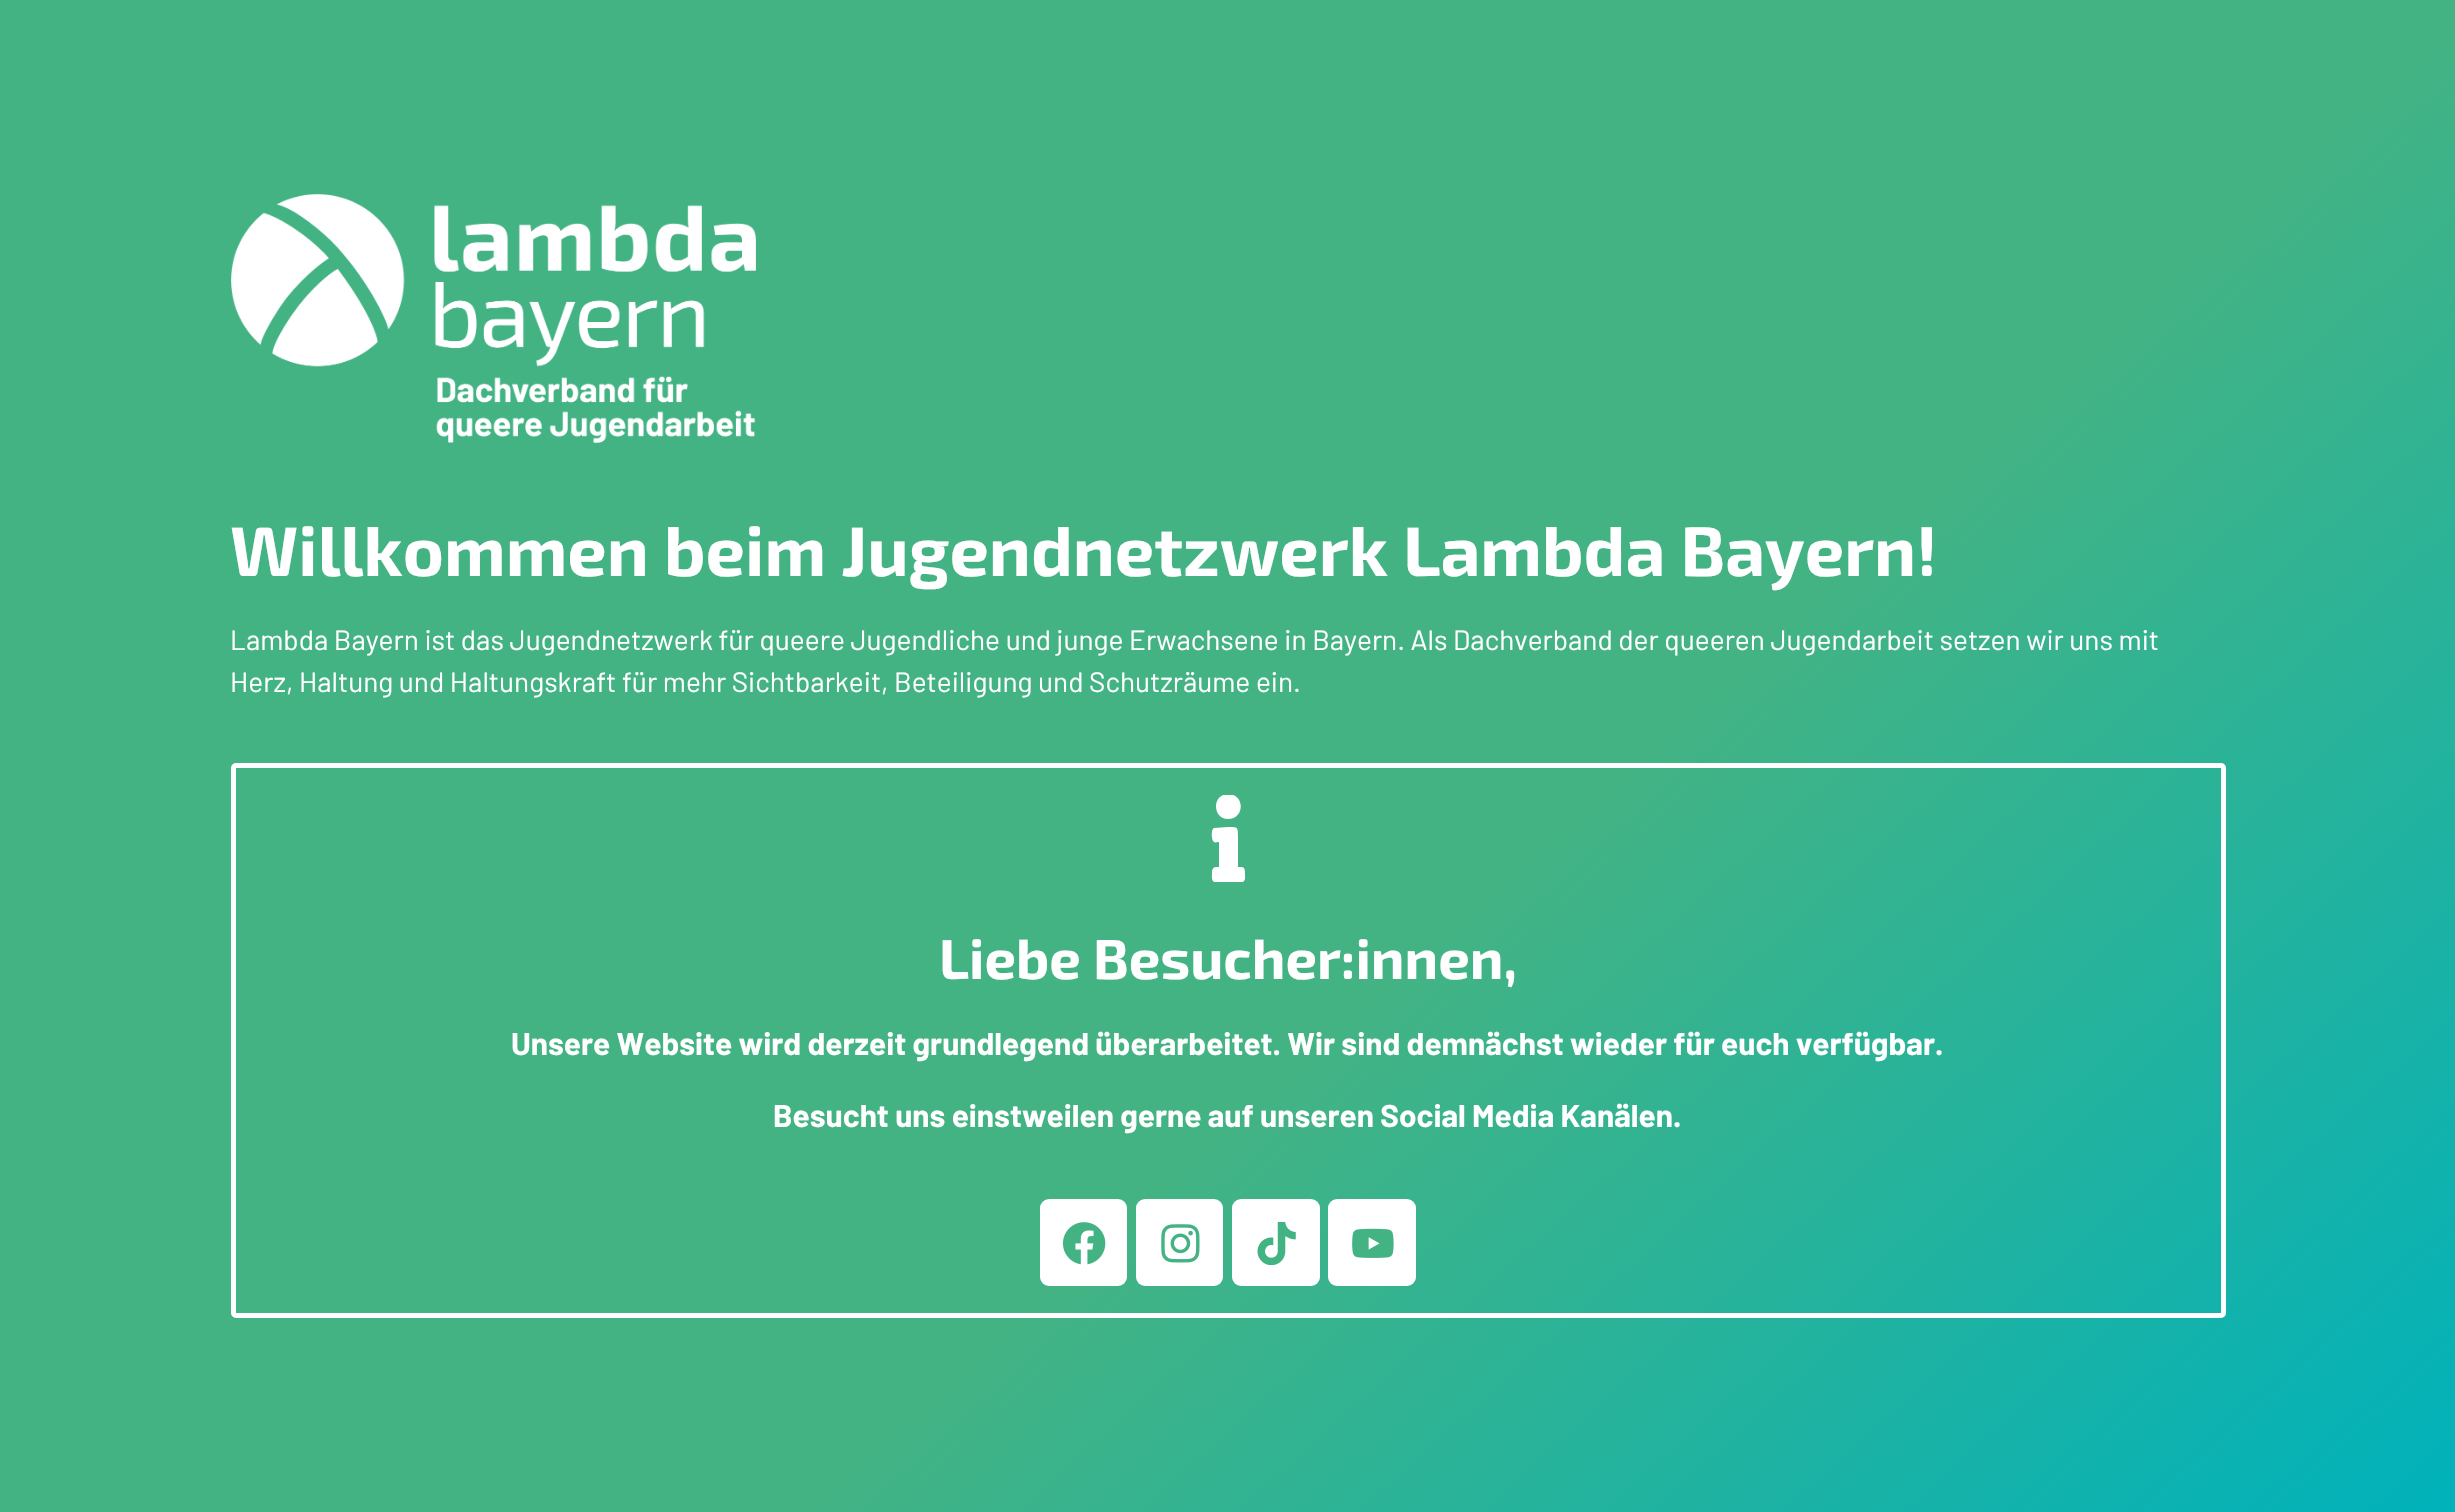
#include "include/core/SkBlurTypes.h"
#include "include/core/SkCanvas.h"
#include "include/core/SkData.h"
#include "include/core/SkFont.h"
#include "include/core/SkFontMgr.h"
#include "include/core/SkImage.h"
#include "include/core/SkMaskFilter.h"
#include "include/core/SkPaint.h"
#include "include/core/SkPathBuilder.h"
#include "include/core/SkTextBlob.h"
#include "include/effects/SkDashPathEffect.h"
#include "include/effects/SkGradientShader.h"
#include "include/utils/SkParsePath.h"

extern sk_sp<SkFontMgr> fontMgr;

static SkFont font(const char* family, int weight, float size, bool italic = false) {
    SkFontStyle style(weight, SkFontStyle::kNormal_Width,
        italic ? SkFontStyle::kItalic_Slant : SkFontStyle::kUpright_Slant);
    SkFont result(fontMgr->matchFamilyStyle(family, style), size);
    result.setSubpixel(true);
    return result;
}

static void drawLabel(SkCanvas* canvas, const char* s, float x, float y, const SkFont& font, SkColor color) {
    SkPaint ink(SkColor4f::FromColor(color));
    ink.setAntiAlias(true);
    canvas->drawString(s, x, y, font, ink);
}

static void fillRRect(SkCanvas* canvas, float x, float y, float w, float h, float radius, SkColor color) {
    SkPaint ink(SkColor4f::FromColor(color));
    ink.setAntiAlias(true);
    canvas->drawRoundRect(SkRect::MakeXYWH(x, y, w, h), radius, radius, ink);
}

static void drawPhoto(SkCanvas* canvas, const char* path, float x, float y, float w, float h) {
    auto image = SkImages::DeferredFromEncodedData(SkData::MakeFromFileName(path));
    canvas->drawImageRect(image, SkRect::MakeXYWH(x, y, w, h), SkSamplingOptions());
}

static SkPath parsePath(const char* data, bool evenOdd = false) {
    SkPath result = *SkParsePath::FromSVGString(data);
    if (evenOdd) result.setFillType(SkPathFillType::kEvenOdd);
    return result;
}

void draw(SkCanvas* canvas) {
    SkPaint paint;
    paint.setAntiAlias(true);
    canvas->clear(0xFFFFFFFF);
    {
        const SkColor colors[] = {0xFF43B384, 0xFF00B2BB};
        const float stops[] = {0.6f, 1};
        const SkPoint ends[] = {{302, -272}, {2153, 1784}};
        paint.setShader(SkGradientShader::MakeLinear(ends, colors, stops, 2, SkTileMode::kClamp));
        paint.setAlpha(255);
    }
    canvas->drawRect(SkRect::MakeXYWH(0, 0, 2455, 1512), paint);
    drawPhoto(canvas, "assets/img1.png", 231, 194, 525, 249);
    SkFont font1 = font("Exo 2", 700, 70);
    drawLabel(canvas, "Willkommen beim Jugendnetzwerk Lambda Bayern!", 230, 576, font1, 0xFFFFFFFF);
    SkFont font2 = font("Barlow", 400, 28);
    drawLabel(canvas, "Lambda Bayern ist das Jugendnetzwerk für queere Jugendliche und junge Erwachsene in Bayern. Als Dachverband der queeren Jugendarbeit setzen wir uns mit", 230, 650, font2, 0xFFFFFFFF);
    drawLabel(canvas, "Herz, Haltung und Haltungskraft für mehr Sichtbarkeit, Beteiligung und Schutzräume ein.", 230, 692, font2, 0xFFFFFFFF);
    paint.setStroke(true);
    paint.setStrokeWidth(5);
    paint.setShader(nullptr);
    paint.setColor(0xFFFFFFFF);
    canvas->drawRoundRect(SkRect::MakeXYWH(233.5f, 765.5f, 1990, 550), 2.5f, 2.5f, paint);
    canvas->save();
    canvas->clipRect(SkRect::MakeXYWH(1185, 795, 87, 87));
    paint.setStroke(false);
    canvas->drawPath(parsePath("M1216 867H1219V842C1217 842 1215 843 1214 842C1211 840 1211 829 1214 828L1228 827C1238 827 1238 827 1238 837V867C1244 867 1245 867 1245 874C1245 877 1246 882 1241 882H1214C1211 880 1212 876 1212 874C1212 871 1212 867 1216 867ZM1228 794C1212 794 1212 819 1228 819C1245 819 1245 794 1228 794Z"), paint);
    canvas->restore();
    SkFont font3 = font("Exo 2", 700, 56);
    drawLabel(canvas, "Liebe Besucher:innen,", 939, 979, font3, 0xFFFFFFFF);
    SkFont font4 = font("Barlow", 700, 31.5f);
    drawLabel(canvas, "Unsere Website wird derzeit grundlegend überarbeitet. Wir sind demnächst wieder für euch verfügbar.", 511, 1055, font4, 0xFFFFFFFF);
    drawLabel(canvas, "Besucht uns einstweilen gerne auf unseren Social Media Kanälen.", 773, 1127, font4, 0xFFFFFFFF);
    fillRRect(canvas, 1040, 1199, 87, 87, 9, 0xFFFFFFFF);
    drawPhoto(canvas, "assets/img2.png", 1062, 1222, 44, 43);
    fillRRect(canvas, 1136, 1199, 87, 87, 9, 0xFFFFFFFF);
    drawPhoto(canvas, "assets/img3.png", 1161, 1224, 39, 39);
    fillRRect(canvas, 1232, 1199, 88, 87, 9, 0xFFFFFFFF);
    drawPhoto(canvas, "assets/img4.png", 1257, 1222, 39, 43);
    fillRRect(canvas, 1328, 1199, 88, 87, 9, 0xFFFFFFFF);
    drawPhoto(canvas, "assets/img5.png", 1352, 1228, 42, 30);
}
